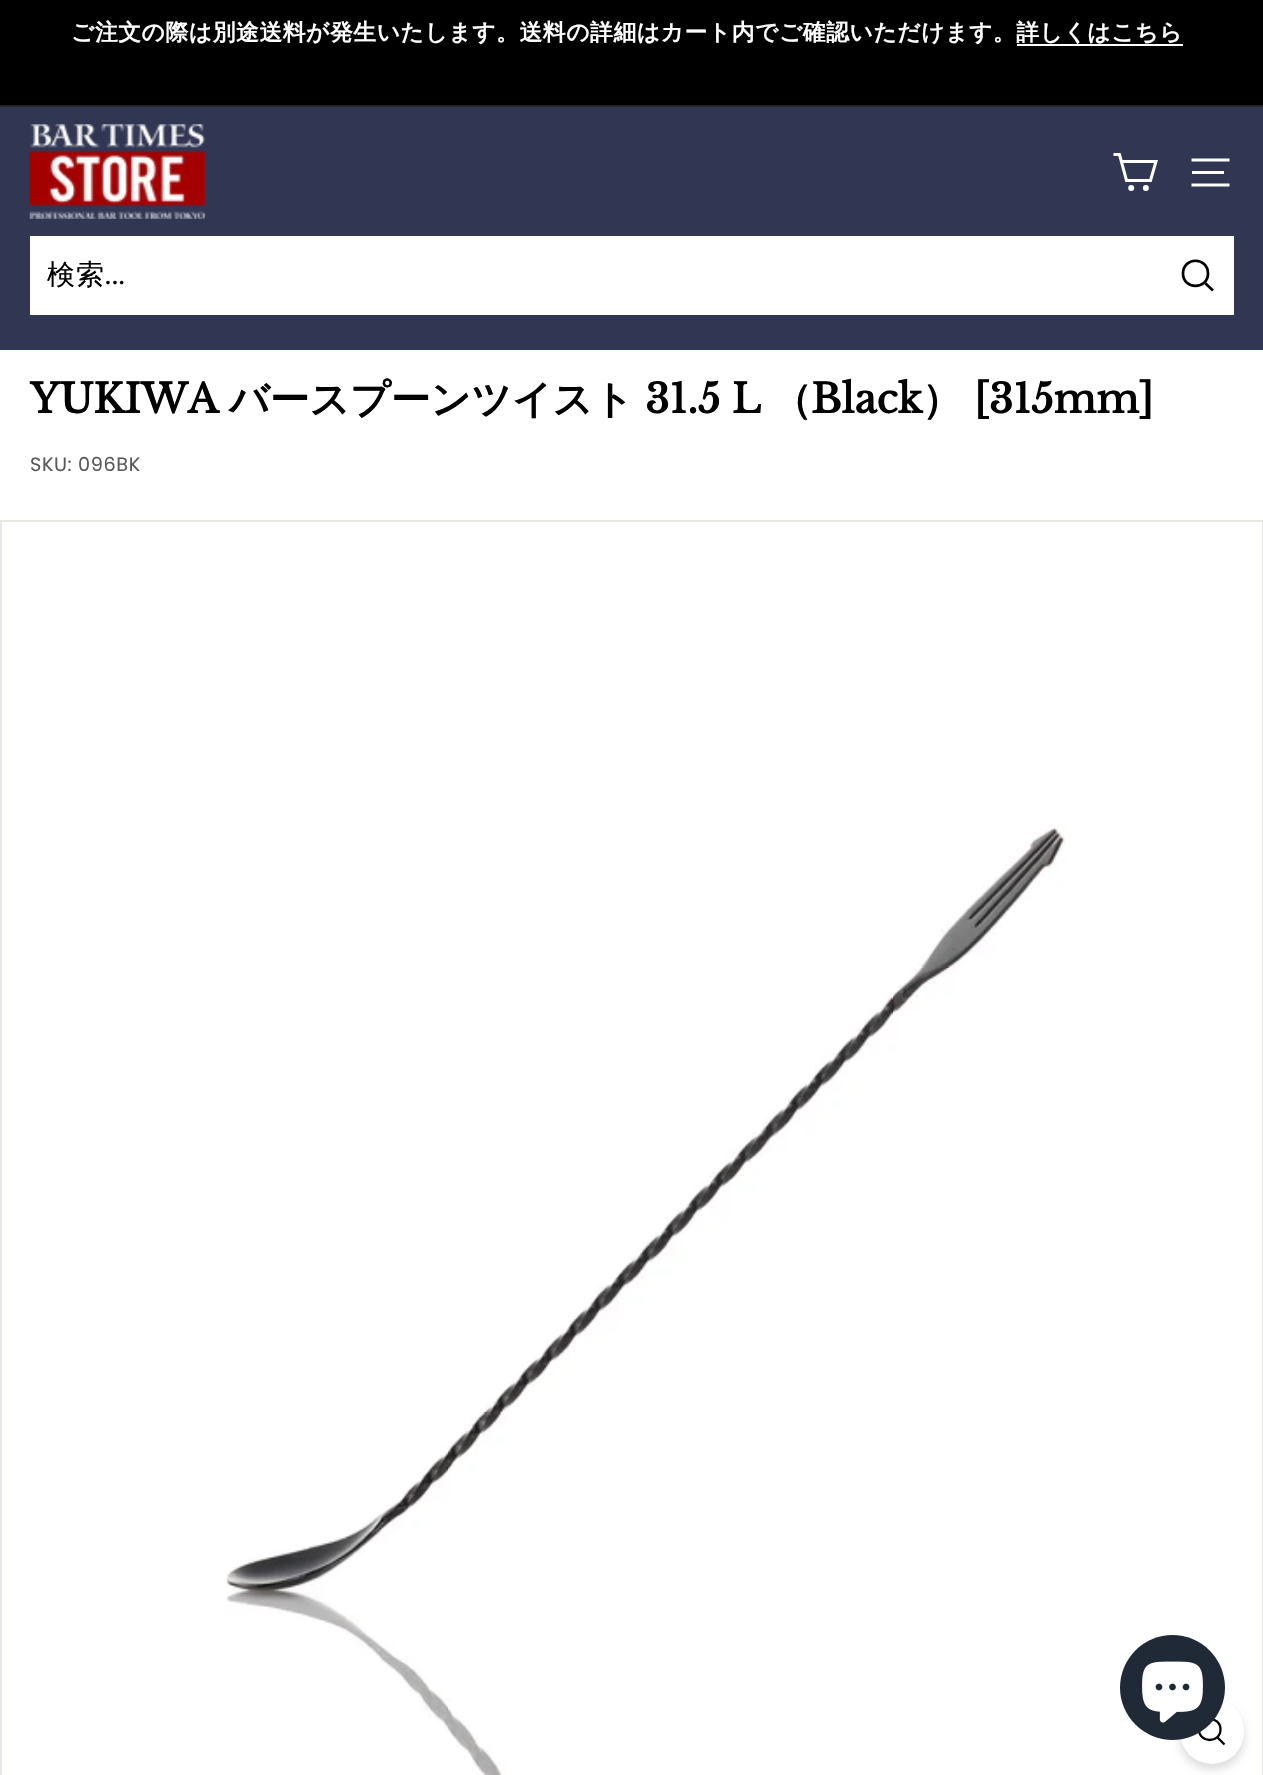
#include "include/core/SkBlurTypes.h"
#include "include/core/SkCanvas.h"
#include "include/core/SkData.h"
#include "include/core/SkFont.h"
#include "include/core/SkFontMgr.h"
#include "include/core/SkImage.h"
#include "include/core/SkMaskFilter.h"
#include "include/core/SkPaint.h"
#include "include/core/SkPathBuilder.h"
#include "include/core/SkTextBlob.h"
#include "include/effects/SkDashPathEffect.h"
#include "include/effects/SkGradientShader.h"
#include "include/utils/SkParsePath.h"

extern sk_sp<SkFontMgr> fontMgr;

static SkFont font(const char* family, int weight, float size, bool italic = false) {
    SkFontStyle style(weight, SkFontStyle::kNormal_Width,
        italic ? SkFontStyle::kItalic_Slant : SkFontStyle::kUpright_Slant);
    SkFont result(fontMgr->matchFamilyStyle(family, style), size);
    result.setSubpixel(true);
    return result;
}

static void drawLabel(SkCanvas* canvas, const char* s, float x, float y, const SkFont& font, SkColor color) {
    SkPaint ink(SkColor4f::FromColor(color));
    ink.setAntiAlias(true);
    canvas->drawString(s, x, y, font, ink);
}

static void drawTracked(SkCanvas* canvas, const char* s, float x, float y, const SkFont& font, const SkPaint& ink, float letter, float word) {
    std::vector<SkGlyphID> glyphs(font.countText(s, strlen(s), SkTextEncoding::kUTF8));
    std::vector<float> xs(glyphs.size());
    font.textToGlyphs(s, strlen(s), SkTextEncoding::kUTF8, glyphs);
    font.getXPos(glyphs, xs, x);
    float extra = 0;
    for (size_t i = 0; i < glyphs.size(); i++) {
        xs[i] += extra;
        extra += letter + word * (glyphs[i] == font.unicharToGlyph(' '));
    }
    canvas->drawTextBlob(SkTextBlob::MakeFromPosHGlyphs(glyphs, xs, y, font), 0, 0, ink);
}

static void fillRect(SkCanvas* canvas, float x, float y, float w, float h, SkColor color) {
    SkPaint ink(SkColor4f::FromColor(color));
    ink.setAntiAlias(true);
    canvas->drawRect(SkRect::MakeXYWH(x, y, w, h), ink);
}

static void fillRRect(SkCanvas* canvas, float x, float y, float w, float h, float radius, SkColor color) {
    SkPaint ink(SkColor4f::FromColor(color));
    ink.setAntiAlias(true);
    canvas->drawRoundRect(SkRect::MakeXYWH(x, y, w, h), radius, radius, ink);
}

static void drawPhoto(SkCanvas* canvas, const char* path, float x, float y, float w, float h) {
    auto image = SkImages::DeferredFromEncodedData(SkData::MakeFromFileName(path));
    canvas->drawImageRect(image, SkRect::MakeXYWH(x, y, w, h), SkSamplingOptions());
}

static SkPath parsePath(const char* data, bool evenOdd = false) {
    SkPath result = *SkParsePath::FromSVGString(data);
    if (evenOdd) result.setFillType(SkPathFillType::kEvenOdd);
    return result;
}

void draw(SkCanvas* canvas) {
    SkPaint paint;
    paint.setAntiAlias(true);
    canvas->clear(0xFFFFFFFF);
    fillRect(canvas, 0, 0, 1263, 105, 0xFF000000);
    SkFont font1 = font("WenQuanYi Zen Hei", 700, 22.75f);
    paint.setColor(0xFFFFFFFF);
    drawTracked(canvas, "ご注文の際は別途送料が発生いたします。送料の詳細はカート内でご確認いただけます。詳しくはこちら", 71, 40, font1, paint, 0.6f, 0);
    fillRect(canvas, 1017, 44, 166, 2, 0xFFFFFFFF);
    fillRect(canvas, 0, 105, 1263, 2, 0xFF262626);
    fillRect(canvas, 0, 107, 1263, 129, 0xFF313652);
    drawPhoto(canvas, "assets/img1.png", 29, 124, 176, 95);
    paint.setStroke(true);
    paint.setStrokeWidth(3);
    canvas->drawPath(parsePath("M1121.5 161.5H1156L1150.5 180.5H1126.5L1119.5 154.5H1113.5"), paint);
    canvas->drawCircle(1131.2f, 187.9f, 1.5f, paint);
    canvas->drawCircle(1145.9f, 187.9f, 1.5f, paint);
    canvas->drawPath(parsePath("M1191.5 160H1229.5"), paint);
    fillRect(canvas, 1192, 171, 32, 3, 0xFFFFFFFF);
    canvas->drawPath(parsePath("M1191.5 185H1229.5"), paint);
    paint.setStroke(false);
    paint.setColor(0xFF313652);
    canvas->drawPath(parsePath("M0 236V350H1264V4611V236Z"), paint);
    fillRect(canvas, 30, 236, 1204, 79, 0xFFFFFFFF);
    SkFont font2 = font("WenQuanYi Zen Hei", 500, 28);
    paint.setColor(0xFF000000);
    drawTracked(canvas, "検索", 47, 284, font2, paint, 1, 0);
    SkFont font3 = font("Poppins", 400, 28);
    drawTracked(canvas, "...", 105, 284, font3, paint, 1, 0);
    paint.setStroke(true);
    paint.setStrokeWidth(2.7f);
    canvas->drawPath(parsePath("M1208 273.5C1208 290 1183 290 1183 273.5C1183 256.5 1208 256.5 1208 273.5ZM1213 290.5L1204.5 282.5"), paint);
    SkFont font4 = font("Libre Baskerville", 700, 39.75f);
    drawLabel(canvas, "YUKIWA", 30, 413, font4, 0xFF000000);
    SkFont font5 = font("WenQuanYi Zen Hei", 700, 39.75f);
    drawLabel(canvas, "バースプーンツイスト", 229, 413, font5, 0xFF000000);
    drawLabel(canvas, "31.5 L", 645, 413, font4, 0xFF000000);
    drawLabel(canvas, "（", 772, 413, font5, 0xFF000000);
    drawLabel(canvas, "Black", 811, 413, font4, 0xFF000000);
    drawLabel(canvas, "）", 922, 413, font5, 0xFF000000);
    drawLabel(canvas, "[315mm]", 974, 413, font4, 0xFF000000);
    SkFont font6 = font("Poppins", 400, 19.25f);
    paint.setStroke(false);
    paint.setColor(0xFF595959);
    drawTracked(canvas, "SKU: 096BK", 30, 471, font6, paint, 0.6f, 0);
    paint.setStroke(true);
    paint.setStrokeWidth(2);
    paint.setColor(0xFFE8E8E1);
    canvas->drawRect(SkRect::MakeXYWH(1, 521, 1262, 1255), paint);
    drawPhoto(canvas, "assets/img2.png", 225, 823, 841, 952);
    paint.setStroke(false);
    paint.setColor(0x26000000);
    paint.setMaskFilter(SkMaskFilter::MakeBlur(kNormal_SkBlurStyle, 5));
    canvas->drawRoundRect(SkRect::MakeXYWH(1180, 1705, 64, 64), 32, 32, paint);
    paint.setMaskFilter(nullptr);
    fillRRect(canvas, 1180, 1699, 64, 65, 32, 0xFFFFFFFF);
    paint.setStroke(true);
    paint.setStrokeWidth(2.3f);
    paint.setColor(0xFF000000);
    canvas->drawPath(parsePath("M1220.5 1729.5C1220.5 1743.5 1199 1743.5 1199 1729.5C1199 1715.5 1220.5 1715.5 1220.5 1729.5ZM1224.5 1744.5L1217.5 1737.5"), paint);
    paint.setStroke(false);
    paint.setColor(0xFF202A36);
    canvas->drawCircle(1172.5f, 1687.5f, 52.5f, paint);
    drawPhoto(canvas, "assets/img3.png", 1142, 1661, 61, 62);
}
